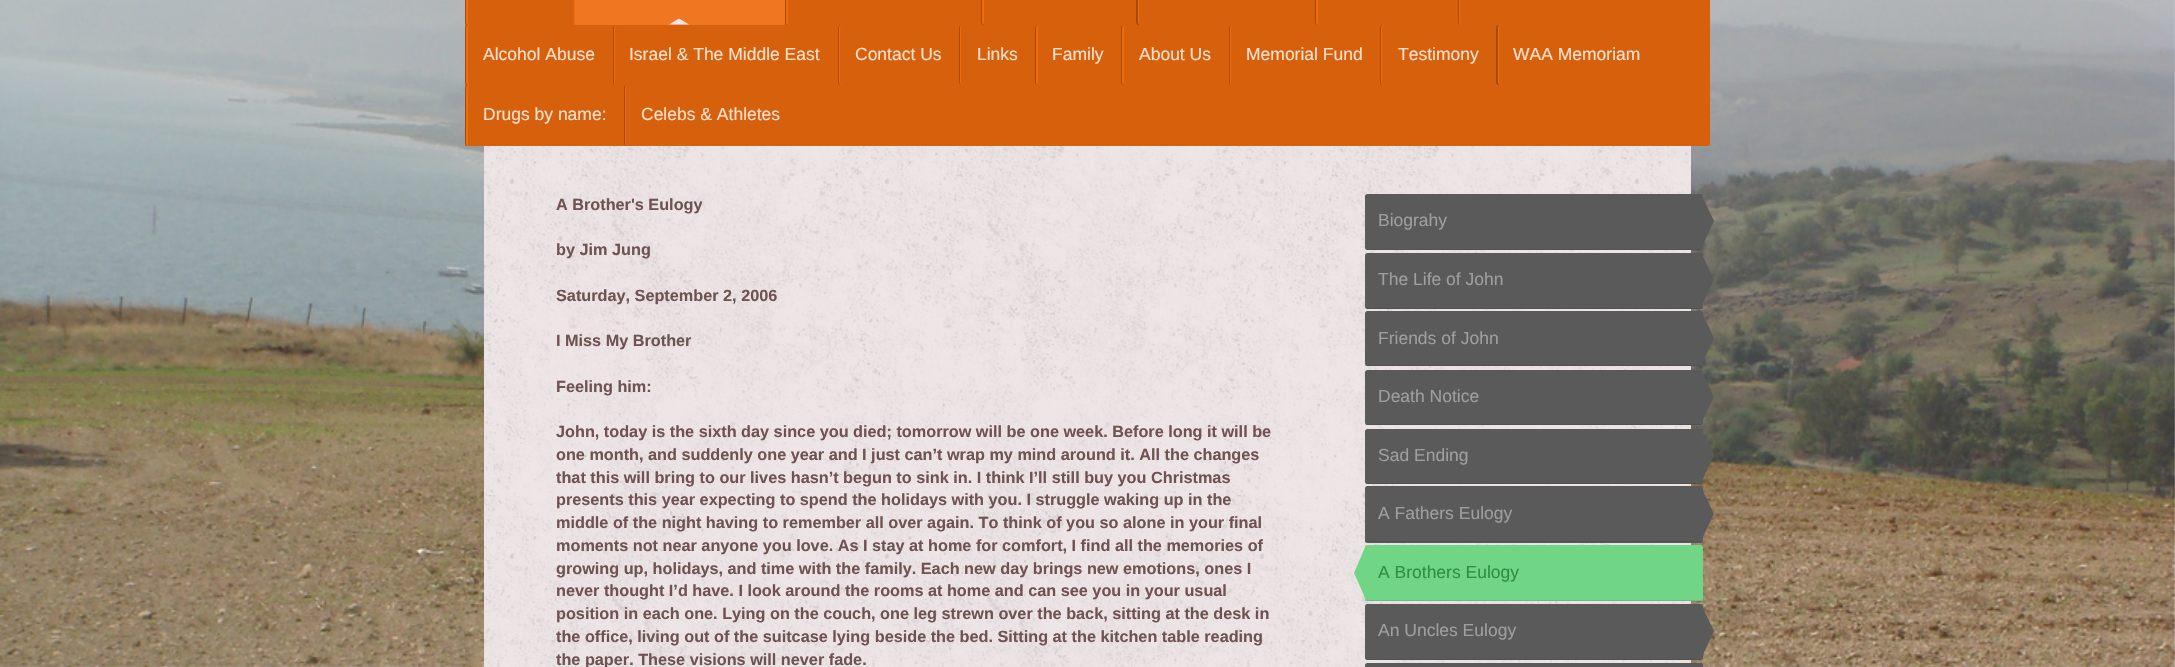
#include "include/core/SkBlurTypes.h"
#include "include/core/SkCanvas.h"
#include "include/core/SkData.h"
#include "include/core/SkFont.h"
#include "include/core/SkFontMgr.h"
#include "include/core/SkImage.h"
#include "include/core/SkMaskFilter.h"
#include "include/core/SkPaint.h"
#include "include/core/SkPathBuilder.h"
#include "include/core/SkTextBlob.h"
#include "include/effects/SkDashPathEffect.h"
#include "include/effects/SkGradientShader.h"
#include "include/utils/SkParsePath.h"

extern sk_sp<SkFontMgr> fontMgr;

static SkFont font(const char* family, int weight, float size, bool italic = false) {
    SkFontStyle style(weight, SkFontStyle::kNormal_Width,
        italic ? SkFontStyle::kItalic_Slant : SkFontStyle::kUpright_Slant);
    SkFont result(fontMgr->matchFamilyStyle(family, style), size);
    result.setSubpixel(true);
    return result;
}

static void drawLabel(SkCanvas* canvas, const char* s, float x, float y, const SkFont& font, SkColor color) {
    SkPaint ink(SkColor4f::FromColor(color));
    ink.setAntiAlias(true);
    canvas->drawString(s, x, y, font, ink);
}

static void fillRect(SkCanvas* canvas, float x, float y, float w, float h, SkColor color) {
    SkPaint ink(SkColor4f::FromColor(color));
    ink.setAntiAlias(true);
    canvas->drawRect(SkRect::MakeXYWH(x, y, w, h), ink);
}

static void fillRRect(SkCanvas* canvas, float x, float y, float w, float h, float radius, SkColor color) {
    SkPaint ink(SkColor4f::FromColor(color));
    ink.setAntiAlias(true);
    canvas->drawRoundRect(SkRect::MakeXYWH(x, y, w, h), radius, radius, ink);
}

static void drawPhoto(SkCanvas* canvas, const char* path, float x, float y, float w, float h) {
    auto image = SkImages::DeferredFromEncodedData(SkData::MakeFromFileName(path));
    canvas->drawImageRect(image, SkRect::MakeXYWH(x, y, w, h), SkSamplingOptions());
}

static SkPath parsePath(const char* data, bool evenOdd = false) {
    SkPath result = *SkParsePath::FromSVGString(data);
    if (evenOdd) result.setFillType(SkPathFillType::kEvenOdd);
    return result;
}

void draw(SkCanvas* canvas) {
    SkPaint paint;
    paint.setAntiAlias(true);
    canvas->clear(0xFFFFFFFF);
    drawPhoto(canvas, "assets/img1.png", 0, 0, 2175, 667);
    fillRect(canvas, 484, 146, 1207, 521, 0xFFEEE6E6);
    drawPhoto(canvas, "assets/img2.png", 483, 146, 1208, 521);
    fillRRect(canvas, 465, -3, 1245, 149, 2.5f, 0xFFD7600C);
    paint.setColor(0xFFEF6B0D);
    canvas->drawPath(parsePath("M468-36C466-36 465-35 465-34V22C465 24 466 25 468 25H470C469 25 468 24 468 22V-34C468-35 469-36 470-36Z"), paint);
    paint.setColor(0xFFA74A09);
    canvas->drawPath(parsePath("M468-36C466-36 465-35 465-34V22C465 24 466 25 468 25H469C467 25 466 24 466 22V-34C466-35 467-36 469-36Z"), paint);
    fillRRect(canvas, 573, -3, 212, 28, 2.5f, 0xFFF07721);
    paint.setColor(0xFFEF6B0D);
    canvas->drawPath(parsePath("M576-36C574-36 573-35 573-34V22C573 24 574 25 576 25H578C576 25 575 24 575 22V-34C575-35 576-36 578-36Z"), paint);
    paint.setColor(0xFFD9630F);
    canvas->drawPath(parsePath("M576-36C574-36 573-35 573-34V22C573 24 574 25 576 25C575 25 574 24 574 22V-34C574-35 575-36 576-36Z"), paint);
    paint.setColor(0xFFEEE6E6);
    canvas->drawPath(parsePath("M689 24.5H669L679 18.5Z"), paint);
    paint.setColor(0xFFEF6B0D);
    canvas->drawPath(parsePath("M788-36C786-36 785-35 785-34V22C785 24 786 25 788 25H790C789 25 788 24 788 22V-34C788-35 789-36 790-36Z"), paint);
    paint.setColor(0xFFA74A09);
    canvas->drawPath(parsePath("M788-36C786-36 785-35 785-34V22C785 24 786 25 788 25H789C787 25 786 24 786 22V-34C786-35 787-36 789-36Z"), paint);
    paint.setColor(0xFFEF6B0D);
    canvas->drawPath(parsePath("M984-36C982-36 981-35 981-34V22C981 24 982 25 984 25H986C985 25 984 24 984 22V-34C984-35 985-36 986-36Z"), paint);
    paint.setColor(0xFFA74A09);
    canvas->drawPath(parsePath("M984-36C982-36 981-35 981-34V22C981 24 982 25 984 25H985C984 25 982 24 982 22V-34C982-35 984-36 985-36Z"), paint);
    paint.setColor(0xFFEF6B0D);
    canvas->drawPath(parsePath("M1138-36C1137-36 1136-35 1136-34V22C1136 24 1137 25 1138 25H1141C1140 25 1139 24 1139 22V-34C1139-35 1140-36 1141-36Z"), paint);
    paint.setColor(0xFFA74A09);
    canvas->drawPath(parsePath("M1138-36C1137-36 1136-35 1136-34V22C1136 24 1137 25 1138 25H1140C1139 25 1138 24 1138 22V-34C1138-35 1139-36 1140-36Z"), paint);
    paint.setColor(0xFFEF6B0D);
    canvas->drawPath(parsePath("M1318-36C1316-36 1315-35 1315-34V22C1315 24 1316 25 1318 25H1320C1319 25 1318 24 1318 22V-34C1318-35 1319-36 1320-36Z"), paint);
    paint.setColor(0xFFA74A09);
    canvas->drawPath(parsePath("M1318-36C1316-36 1315-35 1315-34V22C1315 24 1316 25 1318 25H1319C1317 25 1316 24 1316 22V-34C1316-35 1317-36 1319-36Z"), paint);
    paint.setColor(0xFFEF6B0D);
    canvas->drawPath(parsePath("M1460-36C1459-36 1458-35 1458-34V22C1458 24 1459 25 1460 25H1462C1461 25 1460 24 1460 22V-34C1460-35 1461-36 1462-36Z"), paint);
    paint.setColor(0xFFA74A09);
    canvas->drawPath(parsePath("M1460-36C1459-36 1458-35 1458-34V22C1458 24 1459 25 1460 25H1461C1460 25 1459 24 1459 22V-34C1459-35 1460-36 1461-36Z"), paint);
    paint.setColor(0xFFEF6B0D);
    canvas->drawPath(parsePath("M468 25C466 25 465 26 465 28V82C465 84 466 85 468 85H470C469 85 468 84 468 82V28C468 26 469 25 470 25Z"), paint);
    paint.setColor(0xFFA74A09);
    canvas->drawPath(parsePath("M468 25C466 25 465 26 465 28V82C465 84 466 85 468 85H469C467 85 466 84 466 82V28C466 26 467 25 469 25Z"), paint);
    SkFont font1 = font("Liberation Sans", 400, 17.5f);
    drawLabel(canvas, "Alcohol Abuse", 483, 60, font1, 0xFFFAE1CF);
    paint.setColor(0xFFEF6B0D);
    canvas->drawPath(parsePath("M616 25C614 25 613 26 613 28V82C613 84 614 85 616 85H618C616 85 615 84 615 82V28C615 26 616 25 618 25Z"), paint);
    paint.setColor(0xFFA74A09);
    canvas->drawPath(parsePath("M616 25C614 25 613 26 613 28V82C613 84 614 85 616 85C615 85 614 84 614 82V28C614 26 615 25 616 25Z"), paint);
    drawLabel(canvas, "Israel & The Middle East", 629, 60, font1, 0xFFFAE1CF);
    paint.setColor(0xFFEF6B0D);
    canvas->drawPath(parsePath("M840 25C839 25 838 26 838 28V82C838 84 839 85 840 85H842C841 85 840 84 840 82V28C840 26 841 25 842 25Z"), paint);
    paint.setColor(0xFFA74A09);
    canvas->drawPath(parsePath("M840 25C839 25 838 26 838 28V82C838 84 839 85 840 85H841C840 85 839 84 839 82V28C839 26 840 25 841 25Z"), paint);
    drawLabel(canvas, "Contact Us", 855, 60, font1, 0xFFFAE1CF);
    paint.setColor(0xFFEF6B0D);
    canvas->drawPath(parsePath("M962 25C960 25 959 26 959 28V82C959 84 960 85 962 85H964C962 85 961 84 961 82V28C961 26 962 25 964 25Z"), paint);
    paint.setColor(0xFFA74A09);
    canvas->drawPath(parsePath("M962 25C960 25 959 26 959 28V82C959 84 960 85 962 85C961 85 960 84 960 82V28C960 26 961 25 962 25Z"), paint);
    drawLabel(canvas, "Links", 977, 60, font1, 0xFFFAE1CF);
    paint.setColor(0xFFEF6B0D);
    canvas->drawPath(parsePath("M1038 25C1036 25 1035 26 1035 28V82C1035 84 1036 85 1038 85H1040C1039 85 1038 84 1038 82V28C1038 26 1039 25 1040 25Z"), paint);
    paint.setColor(0xFFA74A09);
    canvas->drawPath(parsePath("M1038 25C1036 25 1035 26 1035 28V82C1035 84 1036 85 1038 85H1039C1037 85 1036 84 1036 82V28C1036 26 1037 25 1039 25Z"), paint);
    drawLabel(canvas, "Family", 1052, 60, font1, 0xFFFAE1CF);
    paint.setColor(0xFFEF6B0D);
    canvas->drawPath(parsePath("M1124 25C1122 25 1121 26 1121 28V82C1121 84 1122 85 1124 85H1126C1125 85 1124 84 1124 82V28C1124 26 1125 25 1126 25Z"), paint);
    paint.setColor(0xFFA74A09);
    canvas->drawPath(parsePath("M1124 25C1122 25 1121 26 1121 28V82C1121 84 1122 85 1124 85H1125C1124 85 1122 84 1122 82V28C1122 26 1124 25 1125 25Z"), paint);
    drawLabel(canvas, "About Us", 1139, 60, font1, 0xFFFAE1CF);
    paint.setColor(0xFFEF6B0D);
    canvas->drawPath(parsePath("M1232 25C1230 25 1229 26 1229 28V82C1229 84 1230 85 1232 85H1234C1232 85 1231 84 1231 82V28C1231 26 1232 25 1234 25Z"), paint);
    paint.setColor(0xFFA74A09);
    canvas->drawPath(parsePath("M1232 25C1230 25 1229 26 1229 28V82C1229 84 1230 85 1232 85C1231 85 1230 84 1230 82V28C1230 26 1231 25 1232 25Z"), paint);
    drawLabel(canvas, "Memorial Fund", 1246, 60, font1, 0xFFFAE1CF);
    paint.setColor(0xFFEF6B0D);
    canvas->drawPath(parsePath("M1382 25C1381 25 1380 26 1380 28V82C1380 84 1381 85 1382 85H1385C1384 85 1382 84 1382 82V28C1382 26 1384 25 1385 25Z"), paint);
    paint.setColor(0xFFA74A09);
    canvas->drawPath(parsePath("M1382 25C1381 25 1380 26 1380 28V82C1380 84 1381 85 1382 85H1384C1382 85 1381 84 1381 82V28C1381 26 1382 25 1384 25Z"), paint);
    drawLabel(canvas, "Testimony", 1398, 60, font1, 0xFFFAE1CF);
    paint.setColor(0xFFEF6B0D);
    canvas->drawPath(parsePath("M1498 25C1497 25 1496 26 1496 28V82C1496 84 1497 85 1498 85H1501C1500 85 1499 84 1499 82V28C1499 26 1500 25 1501 25Z"), paint);
    paint.setColor(0xFFA74A09);
    canvas->drawPath(parsePath("M1498 25C1497 25 1496 26 1496 28V82C1496 84 1497 85 1498 85H1500C1499 85 1498 84 1498 82V28C1498 26 1499 25 1500 25Z"), paint);
    drawLabel(canvas, "WAA Memoriam", 1513, 60, font1, 0xFFFAE1CF);
    paint.setColor(0xFFEF6B0D);
    canvas->drawPath(parsePath("M468 85C466 85 465 86 465 88V144C465 145 466 146 468 146H470C469 146 468 145 468 144V88C468 86 469 85 470 85Z"), paint);
    paint.setColor(0xFFA74A09);
    canvas->drawPath(parsePath("M468 85C466 85 465 86 465 88V144C465 145 466 146 468 146H469C467 146 466 145 466 144V88C466 86 467 85 469 85Z"), paint);
    drawLabel(canvas, "Drugs by name:", 483, 120, font1, 0xFFFAE1CF);
    paint.setColor(0xFFEF6B0D);
    canvas->drawPath(parsePath("M626 85C625 85 624 86 624 88V144C624 145 625 146 626 146H629C627 146 626 145 626 144V88C626 86 627 85 629 85Z"), paint);
    paint.setColor(0xFFA74A09);
    canvas->drawPath(parsePath("M626 85C625 85 624 86 624 88V144C624 145 625 146 626 146H628C626 146 625 145 625 144V88C625 86 626 85 628 85Z"), paint);
    drawLabel(canvas, "Celebs & Athletes", 641, 120, font1, 0xFFFAE1CF);
    SkFont font2 = font("Liberation Sans", 700, 16.25f);
    drawLabel(canvas, "A Brother's Eulogy", 556, 210, font2, 0xFF6F5252);
    drawLabel(canvas, "by Jim Jung", 556, 255, font2, 0xFF6F5252);
    drawLabel(canvas, "Saturday, September 2, 2006", 556, 301, font2, 0xFF6F5252);
    drawLabel(canvas, "I Miss My Brother", 556, 346, font2, 0xFF6F5252);
    drawLabel(canvas, "Feeling him:", 556, 392, font2, 0xFF6F5252);
    drawLabel(canvas, "John, today is the sixth day since you died; tomorrow will be one week. Before long it will be", 556, 437, font2, 0xFF6F5252);
    drawLabel(canvas, "one month, and suddenly one year and I just can’t wrap my mind around it. All the changes", 556, 460, font2, 0xFF6F5252);
    drawLabel(canvas, "that this will bring to our lives hasn’t begun to sink in. I think I’ll still buy you Christmas", 556, 483, font2, 0xFF6F5252);
    drawLabel(canvas, "presents this year expecting to spend the holidays with you. I struggle waking up in the", 556, 505, font2, 0xFF6F5252);
    drawLabel(canvas, "middle of the night having to remember all over again. To think of you so alone in your final", 556, 528, font2, 0xFF6F5252);
    drawLabel(canvas, "moments not near anyone you love. As I stay at home for comfort, I find all the memories of", 556, 551, font2, 0xFF6F5252);
    drawLabel(canvas, "growing up, holidays, and time with the family. Each new day brings new emotions, ones I", 556, 574, font2, 0xFF6F5252);
    drawLabel(canvas, "never thought I’d have. I look around the rooms at home and can see you in your usual", 556, 596, font2, 0xFF6F5252);
    drawLabel(canvas, "position in each one. Lying on the couch, one leg strewn over the back, sitting at the desk in", 556, 619, font2, 0xFF6F5252);
    drawLabel(canvas, "the office, living out of the suitcase lying beside the bed. Sitting at the kitchen table reading", 556, 642, font2, 0xFF6F5252);
    drawLabel(canvas, "the paper. These visions will never fade.", 556, 665, font2, 0xFF6F5252);
    fillRRect(canvas, 1365, 194, 338, 56, 2.5f, 0xFF5A5A5A);
    fillRect(canvas, 1366, 249, 335, 1, 0x1A000000);
    drawLabel(canvas, "Biograhy", 1378, 226, font1, 0xFF9F9F9F);
    paint.setColor(0xFF5A5A5A);
    canvas->drawPath(parsePath("M1701 249V194L1714 221Z"), paint);
    fillRRect(canvas, 1365, 253, 338, 56, 2.5f, 0xFF5A5A5A);
    fillRect(canvas, 1366, 308, 335, 1, 0x1A000000);
    drawLabel(canvas, "The Life of John", 1378, 285, font1, 0xFF9F9F9F);
    canvas->drawPath(parsePath("M1701 307V252L1714 280Z"), paint);
    fillRRect(canvas, 1365, 311, 338, 55, 2.5f, 0xFF5A5A5A);
    fillRect(canvas, 1366, 365, 335, 1, 0x1A000000);
    drawLabel(canvas, "Friends of John", 1378, 344, font1, 0xFF9F9F9F);
    canvas->drawPath(parsePath("M1701 366V311L1714 338Z"), paint);
    fillRRect(canvas, 1365, 370, 338, 55, 2.5f, 0xFF5A5A5A);
    fillRect(canvas, 1366, 424, 335, 1, 0x1A000000);
    drawLabel(canvas, "Death Notice", 1378, 402, font1, 0xFF9F9F9F);
    canvas->drawPath(parsePath("M1701 424V369L1714 397Z"), paint);
    fillRRect(canvas, 1365, 429, 338, 55, 2.5f, 0xFF5A5A5A);
    fillRect(canvas, 1366, 483, 335, 1, 0x1A000000);
    drawLabel(canvas, "Sad Ending", 1378, 461, font1, 0xFF9F9F9F);
    canvas->drawPath(parsePath("M1701 483V428L1714 455Z"), paint);
    fillRRect(canvas, 1365, 486, 338, 57, 2.5f, 0xFF5A5A5A);
    fillRect(canvas, 1366, 541, 335, 1, 0xFF515151);
    drawLabel(canvas, "A Fathers Eulogy", 1378, 519, font1, 0xFF9F9F9F);
    canvas->drawPath(parsePath("M1701 541V487L1714 514Z"), paint);
    fillRRect(canvas, 1365, 545, 338, 56, 2.5f, 0xFF71D586);
    fillRect(canvas, 1366, 600, 335, 1, 0x1A000000);
    paint.setColor(0xFF71D586);
    canvas->drawPath(parsePath("M1366 545V600L1354 573Z"), paint);
    drawLabel(canvas, "A Brothers Eulogy", 1378, 578, font1, 0xFF2F8D43);
    fillRRect(canvas, 1365, 604, 338, 56, 2.5f, 0xFF5A5A5A);
    fillRect(canvas, 1366, 659, 335, 1, 0x1A000000);
    drawLabel(canvas, "An Uncles Eulogy", 1378, 636, font1, 0xFF9F9F9F);
    paint.setColor(0xFF5A5A5A);
    canvas->drawPath(parsePath("M1701 659V604L1714 631Z"), paint);
    fillRRect(canvas, 1365, 663, 338, 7, 2.5f, 0xFF5A5A5A);
    canvas->drawPath(parsePath("M1701 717V662L1714 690Z"), paint);
}
